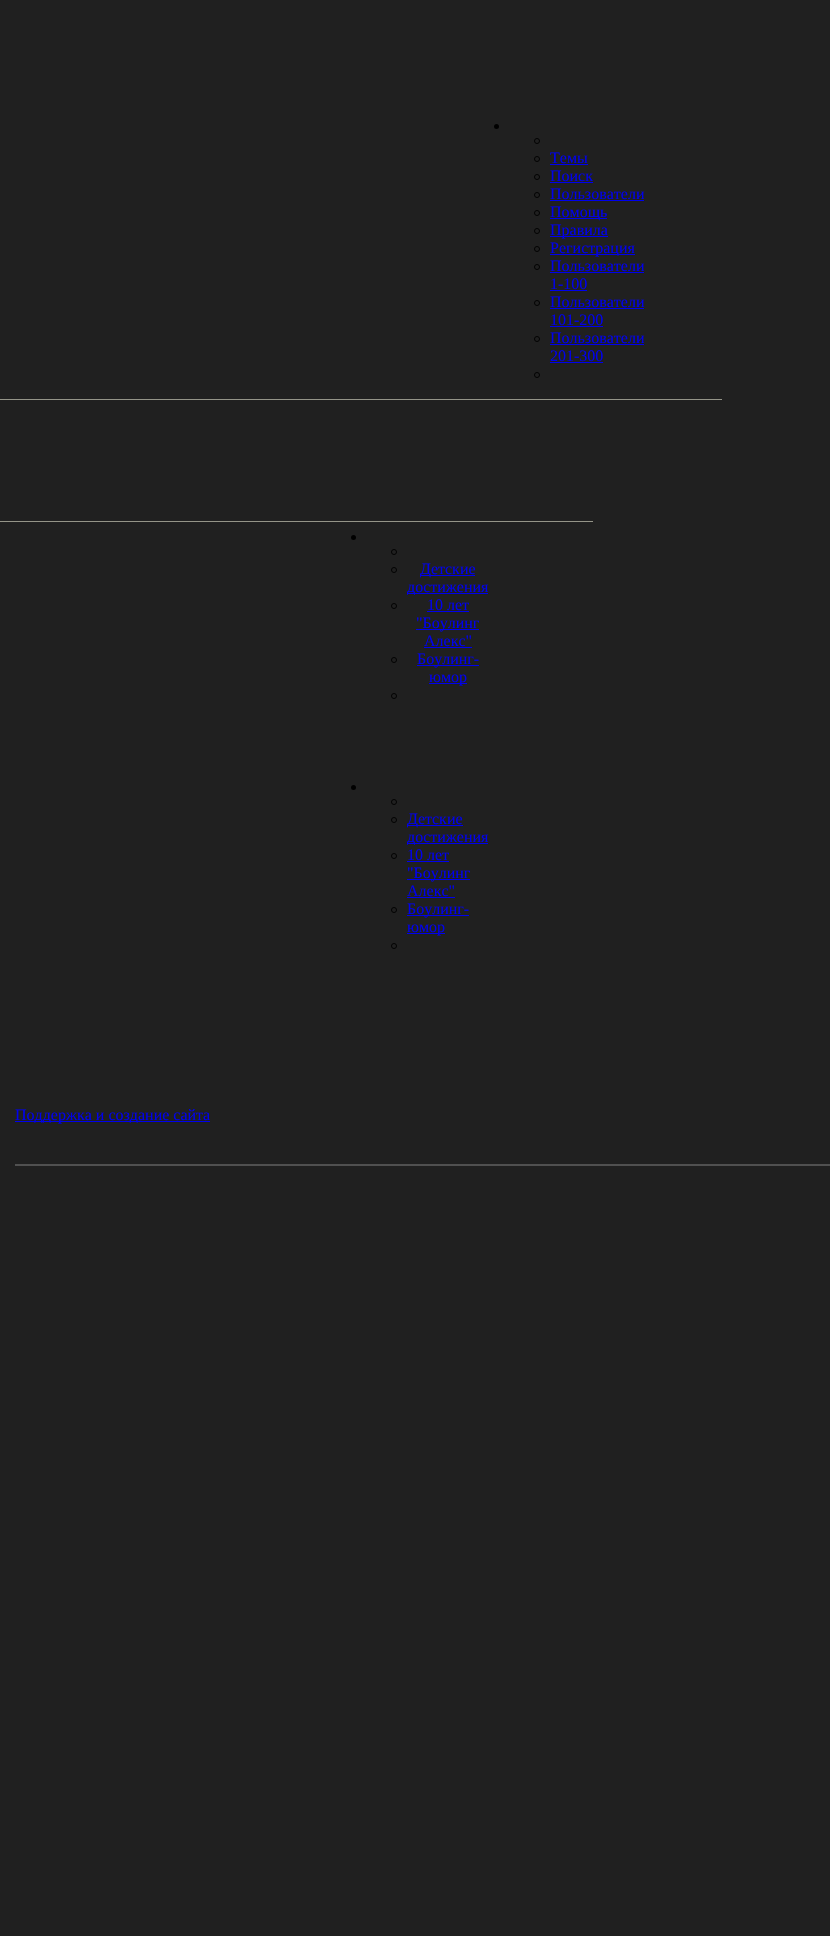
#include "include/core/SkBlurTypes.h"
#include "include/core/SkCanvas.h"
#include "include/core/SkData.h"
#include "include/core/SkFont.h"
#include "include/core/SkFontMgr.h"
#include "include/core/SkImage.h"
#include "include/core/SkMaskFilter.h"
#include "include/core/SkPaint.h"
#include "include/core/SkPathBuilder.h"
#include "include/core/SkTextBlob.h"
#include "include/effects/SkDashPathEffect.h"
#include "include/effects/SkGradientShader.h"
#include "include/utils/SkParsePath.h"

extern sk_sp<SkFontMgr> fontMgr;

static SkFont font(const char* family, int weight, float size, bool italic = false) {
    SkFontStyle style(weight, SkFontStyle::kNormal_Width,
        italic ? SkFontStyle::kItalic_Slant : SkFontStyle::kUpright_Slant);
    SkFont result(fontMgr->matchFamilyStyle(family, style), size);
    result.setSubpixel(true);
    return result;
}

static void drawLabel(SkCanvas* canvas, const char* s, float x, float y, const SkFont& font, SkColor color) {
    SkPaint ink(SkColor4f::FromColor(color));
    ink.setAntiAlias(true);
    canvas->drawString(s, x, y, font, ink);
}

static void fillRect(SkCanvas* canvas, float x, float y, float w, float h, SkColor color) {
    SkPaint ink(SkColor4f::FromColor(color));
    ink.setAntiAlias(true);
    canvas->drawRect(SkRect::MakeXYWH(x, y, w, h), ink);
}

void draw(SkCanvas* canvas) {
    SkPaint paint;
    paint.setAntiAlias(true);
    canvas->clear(0xFF202020);
    paint.setColor(0xFF000000);
    canvas->drawCircle(496.5f, 126.5f, 2.5f, paint);
    paint.setStroke(true);
    paint.setStrokeWidth(1);
    canvas->drawCircle(537, 141, 2.5f, paint);
    canvas->drawCircle(537, 159, 2.5f, paint);
    SkFont font1 = font("Liberation Serif", 400, 16);
    drawLabel(canvas, "Темы", 550, 163, font1, 0xFF0000EE);
    fillRect(canvas, 550, 164, 38, 1, 0xFF0000EE);
    canvas->drawCircle(537, 177, 2.5f, paint);
    drawLabel(canvas, "Поиск", 550, 181, font1, 0xFF0000EE);
    fillRect(canvas, 550, 182, 43, 1, 0xFF0000EE);
    canvas->drawCircle(537, 195, 2.5f, paint);
    drawLabel(canvas, "Пользователи", 550, 199, font1, 0xFF0000EE);
    fillRect(canvas, 550, 200, 94, 1, 0xFF0000EE);
    canvas->drawCircle(537, 213, 2.5f, paint);
    fillRect(canvas, 550, 218, 57, 1, 0xFF0000EE);
    drawLabel(canvas, "Помощь", 550, 217, font1, 0xFF0000EE);
    canvas->drawCircle(537, 231, 2.5f, paint);
    fillRect(canvas, 550, 236, 58, 1, 0xFF0000EE);
    drawLabel(canvas, "Правила", 550, 235, font1, 0xFF0000EE);
    canvas->drawCircle(537, 249, 2.5f, paint);
    fillRect(canvas, 550, 254, 85, 1, 0xFF0000EE);
    drawLabel(canvas, "Регистрация", 550, 253, font1, 0xFF0000EE);
    canvas->drawCircle(537, 267, 2.5f, paint);
    drawLabel(canvas, "Пользователи", 550, 271, font1, 0xFF0000EE);
    fillRect(canvas, 550, 272, 94, 1, 0xFF0000EE);
    drawLabel(canvas, "1-100", 550, 289, font1, 0xFF0000EE);
    fillRect(canvas, 550, 290, 37, 1, 0xFF0000EE);
    canvas->drawCircle(537, 303, 2.5f, paint);
    drawLabel(canvas, "Пользователи", 550, 307, font1, 0xFF0000EE);
    fillRect(canvas, 550, 308, 94, 1, 0xFF0000EE);
    drawLabel(canvas, "101-200", 550, 325, font1, 0xFF0000EE);
    fillRect(canvas, 550, 326, 53, 1, 0xFF0000EE);
    canvas->drawCircle(537, 339, 2.5f, paint);
    drawLabel(canvas, "Пользователи", 550, 343, font1, 0xFF0000EE);
    fillRect(canvas, 550, 344, 94, 1, 0xFF0000EE);
    drawLabel(canvas, "201-300", 550, 361, font1, 0xFF0000EE);
    fillRect(canvas, 550, 362, 53, 1, 0xFF0000EE);
    canvas->drawCircle(537, 375, 2.5f, paint);
    fillRect(canvas, 0, 399, 722, 1, 0xFF949488);
    fillRect(canvas, 0, 521, 593, 1, 0xFF949488);
    paint.setStroke(false);
    canvas->drawCircle(353.5f, 537.5f, 2.5f, paint);
    paint.setStroke(true);
    canvas->drawCircle(394, 552, 2.5f, paint);
    canvas->drawCircle(394, 570, 2.5f, paint);
    fillRect(canvas, 420, 575, 55, 1, 0xFF0000EE);
    drawLabel(canvas, "Детские", 420, 574, font1, 0xFF0000EE);
    fillRect(canvas, 407, 593, 81, 1, 0xFF0000EE);
    drawLabel(canvas, "достижения", 407, 592, font1, 0xFF0000EE);
    canvas->drawCircle(394, 606, 2.5f, paint);
    drawLabel(canvas, "10 лет", 427, 610, font1, 0xFF0000EE);
    fillRect(canvas, 427, 611, 42, 1, 0xFF0000EE);
    fillRect(canvas, 416, 629, 63, 1, 0xFF0000EE);
    drawLabel(canvas, "\"Боулинг", 416, 628, font1, 0xFF0000EE);
    drawLabel(canvas, "Алекс\"", 424, 646, font1, 0xFF0000EE);
    fillRect(canvas, 424, 647, 48, 1, 0xFF0000EE);
    canvas->drawCircle(394, 660, 2.5f, paint);
    fillRect(canvas, 417, 665, 62, 1, 0xFF0000EE);
    drawLabel(canvas, "Боулинг-", 417, 664, font1, 0xFF0000EE);
    fillRect(canvas, 429, 683, 38, 1, 0xFF0000EE);
    drawLabel(canvas, "юмор", 429, 682, font1, 0xFF0000EE);
    canvas->drawCircle(394, 696, 2.5f, paint);
    paint.setStroke(false);
    canvas->drawCircle(353.5f, 787.5f, 2.5f, paint);
    paint.setStroke(true);
    canvas->drawCircle(394, 802, 2.5f, paint);
    canvas->drawCircle(394, 820, 2.5f, paint);
    fillRect(canvas, 407, 825, 56, 1, 0xFF0000EE);
    drawLabel(canvas, "Детские", 407, 824, font1, 0xFF0000EE);
    fillRect(canvas, 407, 843, 81, 1, 0xFF0000EE);
    drawLabel(canvas, "достижения", 407, 842, font1, 0xFF0000EE);
    canvas->drawCircle(394, 856, 2.5f, paint);
    drawLabel(canvas, "10 лет", 407, 860, font1, 0xFF0000EE);
    fillRect(canvas, 407, 861, 42, 1, 0xFF0000EE);
    fillRect(canvas, 407, 879, 63, 1, 0xFF0000EE);
    drawLabel(canvas, "\"Боулинг", 407, 878, font1, 0xFF0000EE);
    drawLabel(canvas, "Алекс\"", 407, 896, font1, 0xFF0000EE);
    fillRect(canvas, 407, 897, 48, 1, 0xFF0000EE);
    canvas->drawCircle(394, 910, 2.5f, paint);
    fillRect(canvas, 407, 915, 62, 1, 0xFF0000EE);
    drawLabel(canvas, "Боулинг-", 407, 914, font1, 0xFF0000EE);
    fillRect(canvas, 407, 933, 38, 1, 0xFF0000EE);
    drawLabel(canvas, "юмор", 407, 932, font1, 0xFF0000EE);
    canvas->drawCircle(394, 946, 2.5f, paint);
    fillRect(canvas, 15, 1121, 195, 1, 0xFF0000EE);
    drawLabel(canvas, "Поддержка и создание сайта", 15, 1120, font1, 0xFF0000EE);
    fillRect(canvas, 15, 1164, 815, 2, 0xFF505050);
}
